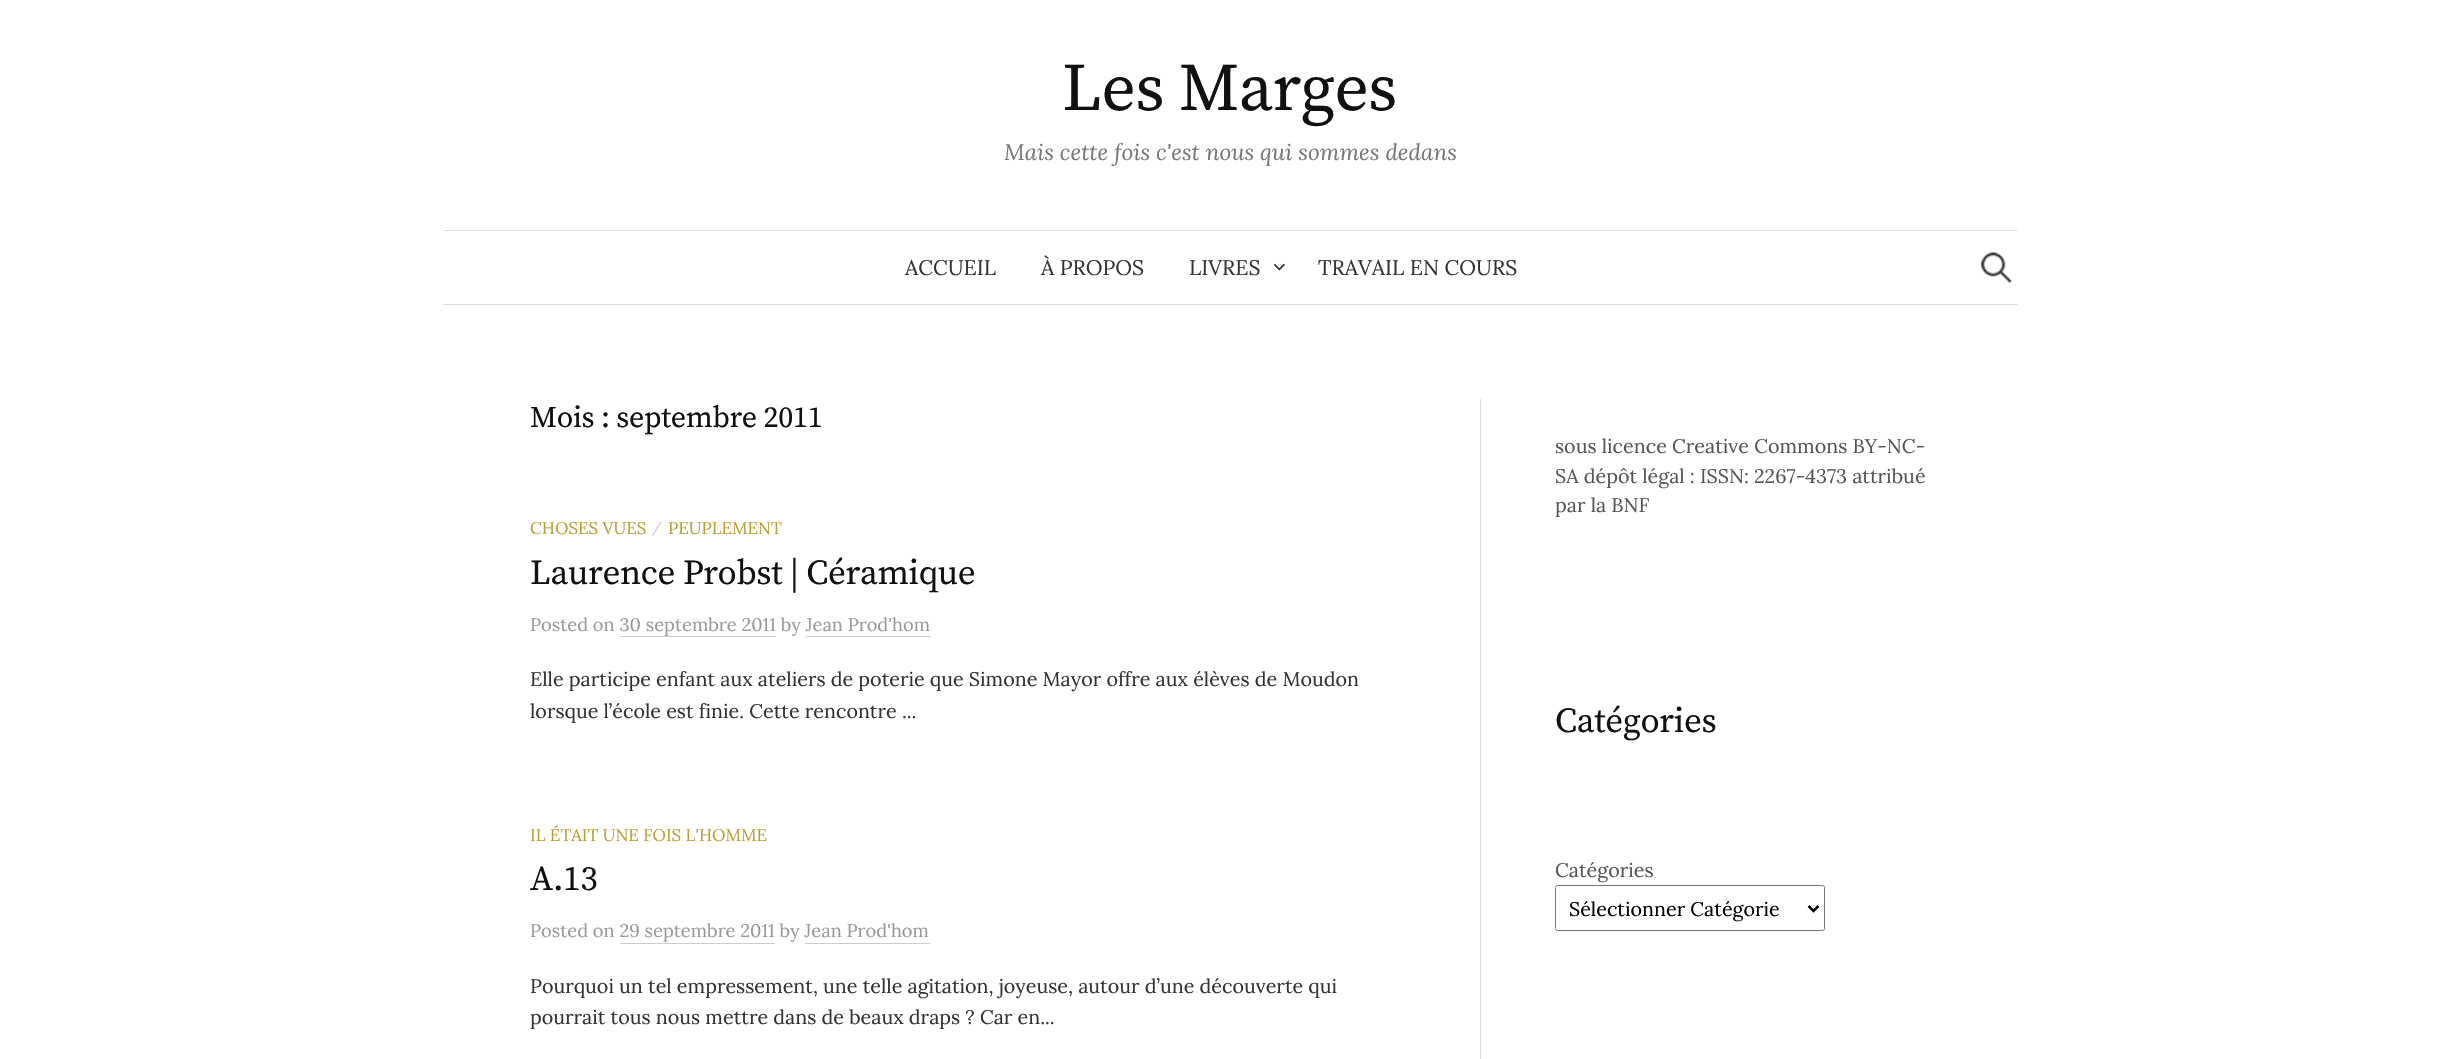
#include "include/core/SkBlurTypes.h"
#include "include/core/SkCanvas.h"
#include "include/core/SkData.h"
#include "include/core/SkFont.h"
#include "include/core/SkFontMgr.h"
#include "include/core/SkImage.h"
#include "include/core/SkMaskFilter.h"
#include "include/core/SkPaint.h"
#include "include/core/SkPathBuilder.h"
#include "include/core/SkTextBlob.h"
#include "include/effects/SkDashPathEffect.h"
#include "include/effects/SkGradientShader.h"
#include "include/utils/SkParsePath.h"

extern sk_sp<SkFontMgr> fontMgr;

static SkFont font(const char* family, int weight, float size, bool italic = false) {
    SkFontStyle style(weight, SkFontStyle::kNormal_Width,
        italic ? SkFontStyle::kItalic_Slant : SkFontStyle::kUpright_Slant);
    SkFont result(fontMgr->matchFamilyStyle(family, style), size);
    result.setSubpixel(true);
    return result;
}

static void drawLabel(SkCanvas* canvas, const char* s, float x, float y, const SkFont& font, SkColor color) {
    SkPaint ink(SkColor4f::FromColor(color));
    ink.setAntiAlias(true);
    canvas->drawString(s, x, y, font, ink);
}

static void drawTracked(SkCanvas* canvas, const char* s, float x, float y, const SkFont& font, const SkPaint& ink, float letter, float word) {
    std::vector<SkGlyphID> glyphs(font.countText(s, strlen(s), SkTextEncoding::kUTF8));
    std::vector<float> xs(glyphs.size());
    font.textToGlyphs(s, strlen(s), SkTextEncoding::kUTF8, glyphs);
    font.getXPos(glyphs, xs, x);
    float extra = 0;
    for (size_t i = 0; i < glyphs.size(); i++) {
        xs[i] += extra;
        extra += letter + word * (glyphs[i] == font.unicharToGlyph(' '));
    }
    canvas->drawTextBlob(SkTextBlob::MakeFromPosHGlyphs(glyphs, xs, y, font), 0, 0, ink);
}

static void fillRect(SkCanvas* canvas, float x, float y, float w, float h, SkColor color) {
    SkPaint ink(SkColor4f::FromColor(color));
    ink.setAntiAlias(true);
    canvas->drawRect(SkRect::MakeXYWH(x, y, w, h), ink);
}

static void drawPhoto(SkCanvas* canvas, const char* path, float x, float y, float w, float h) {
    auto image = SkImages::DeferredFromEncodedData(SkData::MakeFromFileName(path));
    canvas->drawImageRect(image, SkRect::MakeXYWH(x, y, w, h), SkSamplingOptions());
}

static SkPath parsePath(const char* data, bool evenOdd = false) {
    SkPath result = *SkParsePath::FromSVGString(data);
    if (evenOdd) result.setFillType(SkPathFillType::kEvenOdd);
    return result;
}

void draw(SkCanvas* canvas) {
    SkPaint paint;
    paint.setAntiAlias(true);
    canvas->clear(0xFFFFFFFF);
    SkFont font1 = font("Source Serif Pro", 400, 67.5f);
    paint.setColor(0xFF111111);
    drawTracked(canvas, "Les Marges", 1062, 110, font1, paint, -0.75f, 0);
    SkFont font2 = font("Lora", 400, 22.5f, true);
    drawLabel(canvas, "Mais cette fois c'est nous qui sommes dedans", 1004, 160, font2, 0xFF777777);
    fillRect(canvas, 443, 230, 1575, 1, 0xFFDDDDDD);
    fillRect(canvas, 443, 304, 1575, 1, 0xFFDDDDDD);
    SkFont font3 = font("Lora", 400, 21.1f);
    drawLabel(canvas, "ACCUEIL", 905, 275, font3, 0xFF333333);
    drawLabel(canvas, "À PROPOS", 1041, 275, font3, 0xFF333333);
    drawLabel(canvas, "LIVRES", 1189, 275, font3, 0xFF333333);
    drawPhoto(canvas, "assets/img1.png", 1273, 263, 12, 8);
    drawLabel(canvas, "TRAVAIL EN COURS", 1318, 275, font3, 0xFF333333);
    drawPhoto(canvas, "assets/img2.png", 1981, 252, 31, 31);
    fillRect(canvas, 1480, 399, 1, 660, 0xFFDDDDDD);
    SkFont font4 = font("Source Serif Pro", 400, 30);
    drawTracked(canvas, "Mois : septembre 2011", 530, 427, font4, paint, -0.3f, 0);
    SkFont font5 = font("Lora", 400, 16.9f);
    drawLabel(canvas, "CHOSES VUES", 530, 534, font5, 0xFFBA9E30);
    SkFont font6 = font("Lora", 400, 14);
    drawLabel(canvas, "/", 652, 532, font6, 0xFFCCCCCC);
    drawLabel(canvas, "PEUPLEMENT", 668, 534, font5, 0xFFBA9E30);
    SkFont font7 = font("Source Serif Pro", 400, 35);
    drawTracked(canvas, "Laurence Probst | Céramique", 530, 584, font7, paint, -0.35f, 0);
    SkFont font8 = font("Lora", 400, 18.25f);
    drawLabel(canvas, "Posted on 30 septembre 2011 by Jean Prod'hom", 530, 631, font8, 0xFF999999);
    fillRect(canvas, 620, 636, 156, 1, 0xFFCCCCCC);
    fillRect(canvas, 806, 636, 125, 1, 0xFFCCCCCC);
    SkFont font9 = font("Lora", 400, 19.7f);
    drawLabel(canvas, "Elle participe enfant aux ateliers de poterie que Simone Mayor offre aux élèves de Moudon", 530, 686, font9, 0xFF333333);
    drawLabel(canvas, "lorsque l’école est finie. Cette rencontre ...", 530, 718, font9, 0xFF333333);
    drawLabel(canvas, "IL ÉTAIT UNE FOIS L'HOMME", 530, 841, font5, 0xFFBA9E30);
    drawTracked(canvas, "A.13", 530, 890, font7, paint, -0.35f, 0);
    drawLabel(canvas, "Posted on 29 septembre 2011 by Jean Prod'hom", 530, 937, font8, 0xFF999999);
    fillRect(canvas, 620, 943, 155, 1, 0xFFCCCCCC);
    fillRect(canvas, 805, 943, 125, 1, 0xFFCCCCCC);
    drawLabel(canvas, "Pourquoi un tel empressement, une telle agitation, joyeuse, autour d’une découverte qui", 530, 993, font9, 0xFF333333);
    drawLabel(canvas, "pourrait tous nous mettre dans de beaux draps ? Car en...", 530, 1024, font9, 0xFF333333);
    drawLabel(canvas, "sous licence Creative Commons BY-NC-", 1555, 453, font9, 0xFF555555);
    drawLabel(canvas, "SA dépôt légal : ISSN: 2267-4373 attribué", 1555, 483, font9, 0xFF555555);
    drawLabel(canvas, "par la BNF", 1555, 512, font9, 0xFF555555);
    drawTracked(canvas, "Catégories", 1555, 732, font7, paint, -0.35f, 0);
    drawLabel(canvas, "Catégories", 1555, 877, font9, 0xFF555555);
    paint.setStroke(true);
    paint.setStrokeWidth(1);
    paint.setColor(0xFF767676);
    canvas->drawRoundRect(SkRect::MakeXYWH(1555.5f, 885.5f, 269, 45), 2, 2, paint);
    paint.setStrokeWidth(2.5f);
    paint.setColor(0xFF000000);
    canvas->drawPath(parsePath("M1808.5 906L1813.5 911L1818.5 906"), paint);
    drawLabel(canvas, "Sélectionner Catégorie", 1569, 916, font9, 0xFF000000);
}
